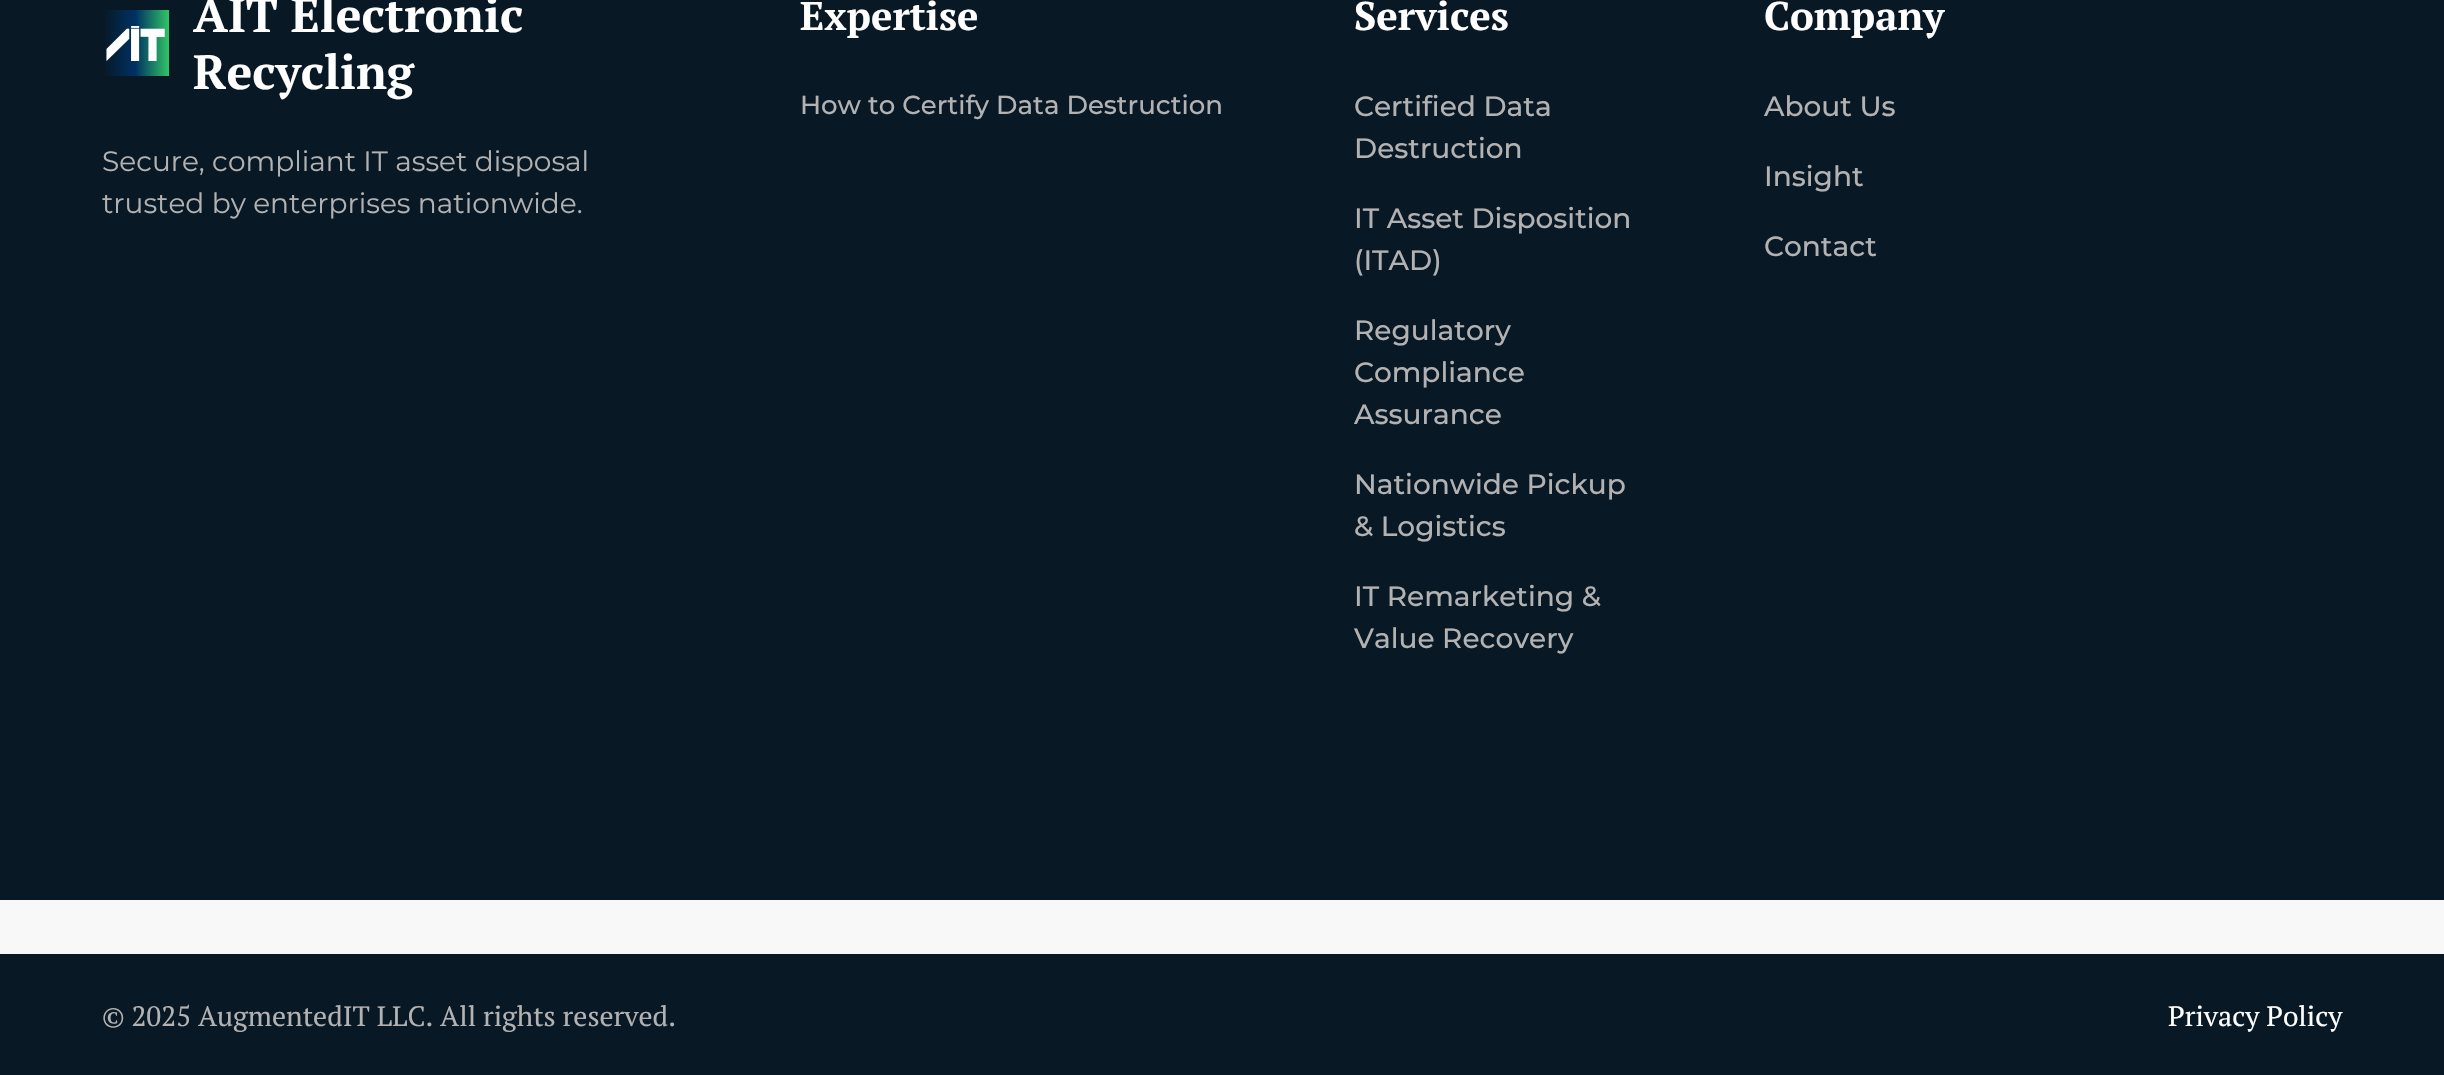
#include "include/core/SkBlurTypes.h"
#include "include/core/SkCanvas.h"
#include "include/core/SkData.h"
#include "include/core/SkFont.h"
#include "include/core/SkFontMgr.h"
#include "include/core/SkImage.h"
#include "include/core/SkMaskFilter.h"
#include "include/core/SkPaint.h"
#include "include/core/SkPathBuilder.h"
#include "include/core/SkTextBlob.h"
#include "include/effects/SkDashPathEffect.h"
#include "include/effects/SkGradientShader.h"
#include "include/utils/SkParsePath.h"

extern sk_sp<SkFontMgr> fontMgr;

static SkFont font(const char* family, int weight, float size, bool italic = false) {
    SkFontStyle style(weight, SkFontStyle::kNormal_Width,
        italic ? SkFontStyle::kItalic_Slant : SkFontStyle::kUpright_Slant);
    SkFont result(fontMgr->matchFamilyStyle(family, style), size);
    result.setSubpixel(true);
    return result;
}

static void drawLabel(SkCanvas* canvas, const char* s, float x, float y, const SkFont& font, SkColor color) {
    SkPaint ink(SkColor4f::FromColor(color));
    ink.setAntiAlias(true);
    canvas->drawString(s, x, y, font, ink);
}

static void fillRect(SkCanvas* canvas, float x, float y, float w, float h, SkColor color) {
    SkPaint ink(SkColor4f::FromColor(color));
    ink.setAntiAlias(true);
    canvas->drawRect(SkRect::MakeXYWH(x, y, w, h), ink);
}

static void drawPhoto(SkCanvas* canvas, const char* path, float x, float y, float w, float h) {
    auto image = SkImages::DeferredFromEncodedData(SkData::MakeFromFileName(path));
    canvas->drawImageRect(image, SkRect::MakeXYWH(x, y, w, h), SkSamplingOptions());
}

void draw(SkCanvas* canvas) {
    SkPaint paint;
    paint.setAntiAlias(true);
    canvas->clear(0xFFF8F8F8);
    fillRect(canvas, 0, 0, 2444, 900, 0xFF091825);
    drawPhoto(canvas, "assets/img1.png", 105, 10, 64, 66);
    SkFont font1 = font("PT Serif", 700, 48);
    drawLabel(canvas, "AIT Electronic", 193, 32, font1, 0xFFFFFFFF);
    drawLabel(canvas, "Recycling", 193, 89, font1, 0xFFFFFFFF);
    SkFont font2 = font("Montserrat", 400, 28);
    drawLabel(canvas, "Secure, compliant IT asset disposal", 102, 171, font2, 0xFFB2B2B2);
    drawLabel(canvas, "trusted by enterprises nationwide.", 102, 213, font2, 0xFFB2B2B2);
    SkFont font3 = font("PT Serif", 700, 40);
    drawLabel(canvas, "Expertise", 800, 30, font3, 0xFFFFFFFF);
    SkFont font4 = font("Montserrat", 500, 26);
    drawLabel(canvas, "How to Certify Data Destruction", 800, 114, font4, 0xFFB2B2B2);
    drawLabel(canvas, "Services", 1354, 30, font3, 0xFFFFFFFF);
    SkFont font5 = font("Montserrat", 500, 28);
    drawLabel(canvas, "Certified Data", 1354, 116, font5, 0xFFB2B2B2);
    drawLabel(canvas, "Destruction", 1354, 158, font5, 0xFFB2B2B2);
    drawLabel(canvas, "IT Asset Disposition", 1354, 228, font5, 0xFFB2B2B2);
    drawLabel(canvas, "(ITAD)", 1354, 270, font5, 0xFFB2B2B2);
    drawLabel(canvas, "Regulatory", 1354, 340, font5, 0xFFB2B2B2);
    drawLabel(canvas, "Compliance", 1354, 382, font5, 0xFFB2B2B2);
    drawLabel(canvas, "Assurance", 1354, 424, font5, 0xFFB2B2B2);
    drawLabel(canvas, "Nationwide Pickup", 1354, 494, font5, 0xFFB2B2B2);
    drawLabel(canvas, "& Logistics", 1354, 536, font5, 0xFFB2B2B2);
    drawLabel(canvas, "IT Remarketing &", 1354, 606, font5, 0xFFB2B2B2);
    drawLabel(canvas, "Value Recovery", 1354, 648, font5, 0xFFB2B2B2);
    drawLabel(canvas, "Company", 1764, 30, font3, 0xFFFFFFFF);
    drawLabel(canvas, "About Us", 1764, 116, font5, 0xFFB2B2B2);
    drawLabel(canvas, "Insight", 1764, 186, font5, 0xFFB2B2B2);
    drawLabel(canvas, "Contact", 1764, 256, font5, 0xFFB2B2B2);
    fillRect(canvas, 0, 954, 2444, 121, 0xFF091825);
    SkFont font6 = font("PT Serif", 400, 28);
    drawLabel(canvas, "© 2025 AugmentedIT LLC. All rights reserved.", 102, 1026, font6, 0xFFB2B2B2);
    drawLabel(canvas, "Privacy Policy", 2168, 1026, font6, 0xFFFFFFFF);
}
